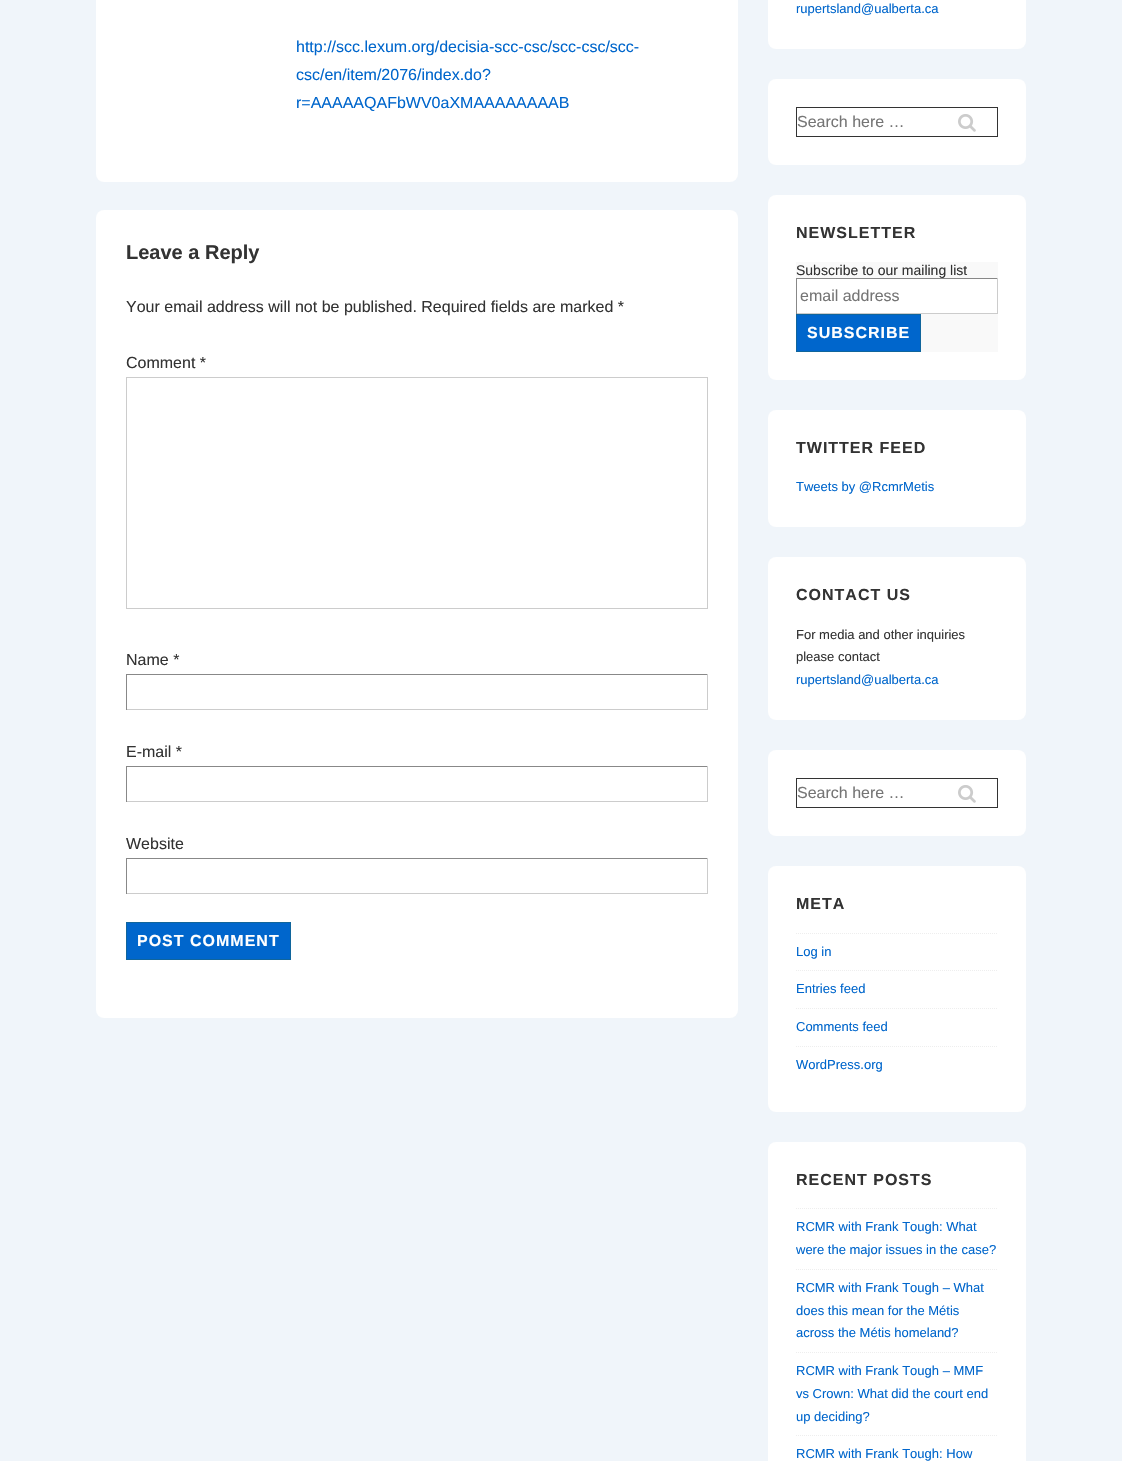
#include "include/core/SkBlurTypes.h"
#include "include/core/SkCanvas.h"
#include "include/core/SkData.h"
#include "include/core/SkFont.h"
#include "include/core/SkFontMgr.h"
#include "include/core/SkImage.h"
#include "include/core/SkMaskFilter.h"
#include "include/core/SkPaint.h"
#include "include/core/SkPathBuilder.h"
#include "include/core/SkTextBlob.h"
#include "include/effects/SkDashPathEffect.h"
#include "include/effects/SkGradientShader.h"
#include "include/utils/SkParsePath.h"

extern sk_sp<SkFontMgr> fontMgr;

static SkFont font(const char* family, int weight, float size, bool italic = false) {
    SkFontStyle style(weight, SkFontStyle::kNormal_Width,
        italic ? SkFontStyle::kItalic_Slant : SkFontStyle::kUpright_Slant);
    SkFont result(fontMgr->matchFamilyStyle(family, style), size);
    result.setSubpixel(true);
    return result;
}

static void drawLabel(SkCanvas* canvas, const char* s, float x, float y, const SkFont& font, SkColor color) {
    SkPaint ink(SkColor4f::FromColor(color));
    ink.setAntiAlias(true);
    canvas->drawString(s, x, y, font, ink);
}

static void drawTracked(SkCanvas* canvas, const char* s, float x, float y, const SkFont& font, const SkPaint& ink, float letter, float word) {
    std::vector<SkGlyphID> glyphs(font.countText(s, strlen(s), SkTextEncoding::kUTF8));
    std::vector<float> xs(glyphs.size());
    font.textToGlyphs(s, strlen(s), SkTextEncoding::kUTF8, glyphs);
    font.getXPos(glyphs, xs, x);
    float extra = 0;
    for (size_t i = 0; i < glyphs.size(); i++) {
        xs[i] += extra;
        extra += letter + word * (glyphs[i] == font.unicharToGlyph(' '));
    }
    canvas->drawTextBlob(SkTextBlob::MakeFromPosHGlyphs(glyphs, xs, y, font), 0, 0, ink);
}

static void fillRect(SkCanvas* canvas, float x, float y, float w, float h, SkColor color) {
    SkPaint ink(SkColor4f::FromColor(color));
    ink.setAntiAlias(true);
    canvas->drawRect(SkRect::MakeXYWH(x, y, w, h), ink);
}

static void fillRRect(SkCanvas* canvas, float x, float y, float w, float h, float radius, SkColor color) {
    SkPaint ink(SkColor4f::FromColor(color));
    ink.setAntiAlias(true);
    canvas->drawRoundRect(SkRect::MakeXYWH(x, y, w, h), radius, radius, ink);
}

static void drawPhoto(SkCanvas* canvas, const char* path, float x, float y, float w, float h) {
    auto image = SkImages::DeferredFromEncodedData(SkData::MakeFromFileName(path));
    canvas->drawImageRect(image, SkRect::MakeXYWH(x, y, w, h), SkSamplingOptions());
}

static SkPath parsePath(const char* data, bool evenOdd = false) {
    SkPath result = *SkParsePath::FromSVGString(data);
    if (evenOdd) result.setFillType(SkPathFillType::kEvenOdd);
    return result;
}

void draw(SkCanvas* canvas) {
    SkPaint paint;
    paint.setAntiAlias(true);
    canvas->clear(0xFFF0F5FA);
    fillRRect(canvas, 96, -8, 642, 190, 8, 0xFFFFFFFF);
    SkFont font1 = font("Liberation Sans", 400, 16);
    drawLabel(canvas, "http://scc.lexum.org/decisia-scc-csc/scc-csc/scc-", 296, 52, font1, 0xFF0066CC);
    drawLabel(canvas, "csc/en/item/2076/index.do?", 296, 80, font1, 0xFF0066CC);
    drawLabel(canvas, "r=AAAAAQAFbWV0aXMAAAAAAAAB", 296, 108, font1, 0xFF0066CC);
    fillRRect(canvas, 96, 210, 642, 808, 8, 0xFFFFFFFF);
    SkFont font2 = font("Liberation Sans", 700, 20);
    drawLabel(canvas, "Leave a Reply", 126, 259, font2, 0xFF333333);
    drawLabel(canvas, "Your email address will not be published. Required fields are marked *", 126, 312, font1, 0xFF333333);
    drawLabel(canvas, "Comment *", 126, 368, font1, 0xFF333333);
    paint.setStroke(true);
    paint.setStrokeWidth(1);
    paint.setColor(0xFFCCCCCC);
    canvas->drawRect(SkRect::MakeXYWH(126.5f, 377.5f, 581, 231), paint);
    drawLabel(canvas, "Name *", 126, 665, font1, 0xFF333333);
    fillRect(canvas, 126, 674, 582, 1, 0xFF888888);
    fillRect(canvas, 707, 674, 1, 36, 0xFFCCCCCC);
    fillRect(canvas, 126, 709, 582, 1, 0xFFCCCCCC);
    fillRect(canvas, 126, 674, 1, 36, 0xFF888888);
    drawLabel(canvas, "E-mail *", 126, 757, font1, 0xFF333333);
    fillRect(canvas, 126, 766, 582, 1, 0xFF888888);
    fillRect(canvas, 707, 766, 1, 36, 0xFFCCCCCC);
    fillRect(canvas, 126, 801, 582, 1, 0xFFCCCCCC);
    fillRect(canvas, 126, 766, 1, 36, 0xFF888888);
    drawLabel(canvas, "Website", 126, 849, font1, 0xFF333333);
    fillRect(canvas, 126, 858, 582, 1, 0xFF888888);
    fillRect(canvas, 707, 858, 1, 36, 0xFFCCCCCC);
    fillRect(canvas, 126, 893, 582, 1, 0xFFCCCCCC);
    fillRect(canvas, 126, 858, 1, 36, 0xFF888888);
    paint.setStroke(false);
    paint.setColor(0xFF0066CC);
    canvas->drawRect(SkRect::MakeXYWH(126.5f, 922.5f, 164, 37), paint);
    paint.setStroke(true);
    paint.setColor(0xFF10659C);
    canvas->drawRect(SkRect::MakeXYWH(126.5f, 922.5f, 164, 37), paint);
    SkFont font3 = font("Liberation Sans", 700, 16);
    paint.setStroke(false);
    paint.setColor(0xFFFFFFFF);
    drawTracked(canvas, "POST COMMENT", 137, 946, font3, paint, 1, 0);
    fillRRect(canvas, 768, -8, 258, 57, 8, 0xFFFFFFFF);
    SkFont font4 = font("Liberation Sans", 400, 13);
    drawLabel(canvas, "rupertsland@ualberta.ca", 796, 13, font4, 0xFF0066CC);
    fillRRect(canvas, 768, 79, 258, 86, 8, 0xFFFFFFFF);
    paint.setStroke(true);
    paint.setColor(0xFF333333);
    canvas->drawRect(SkRect::MakeXYWH(796.5f, 107.5f, 201, 29), paint);
    drawLabel(canvas, "Search here …", 797, 127, font1, 0xFF757575);
    drawPhoto(canvas, "assets/img1.png", 958, 114, 18, 18);
    fillRRect(canvas, 768, 195, 258, 185, 8, 0xFFFFFFFF);
    paint.setStroke(false);
    drawTracked(canvas, "NEWSLETTER", 796, 238, font3, paint, 1, 0);
    fillRect(canvas, 796, 262, 202, 90, 0xFFF9F9F9);
    SkFont font5 = font("Liberation Sans", 400, 14);
    drawLabel(canvas, "Subscribe to our mailing list", 796, 275, font5, 0xFF333333);
    fillRect(canvas, 797, 279, 200, 34, 0xFFFFFFFF);
    fillRect(canvas, 796, 278, 202, 1, 0xFF888888);
    fillRect(canvas, 997, 278, 1, 36, 0xFFCCCCCC);
    fillRect(canvas, 796, 313, 202, 1, 0xFFCCCCCC);
    fillRect(canvas, 796, 278, 1, 36, 0xFF888888);
    drawLabel(canvas, "email address", 800, 301, font1, 0xFF757575);
    paint.setColor(0xFF0066CC);
    canvas->drawRect(SkRect::MakeXYWH(796.5f, 314.5f, 124, 37), paint);
    paint.setStroke(true);
    paint.setColor(0xFF10659C);
    canvas->drawRect(SkRect::MakeXYWH(796.5f, 314.5f, 124, 37), paint);
    paint.setStroke(false);
    paint.setColor(0xFFFFFFFF);
    drawTracked(canvas, "SUBSCRIBE", 807, 338, font3, paint, 1, 0);
    fillRRect(canvas, 768, 410, 258, 117, 8, 0xFFFFFFFF);
    paint.setColor(0xFF333333);
    drawTracked(canvas, "TWITTER FEED", 796, 453, font3, paint, 1, 0);
    drawLabel(canvas, "Tweets by @RcmrMetis", 796, 491, font4, 0xFF0066CC);
    fillRRect(canvas, 768, 557, 258, 163, 8, 0xFFFFFFFF);
    drawTracked(canvas, "CONTACT US", 796, 600, font3, paint, 1, 0);
    drawLabel(canvas, "For media and other inquiries", 796, 639, font4, 0xFF333333);
    drawLabel(canvas, "please contact", 796, 661, font4, 0xFF333333);
    drawLabel(canvas, "rupertsland@ualberta.ca", 796, 684, font4, 0xFF0066CC);
    fillRRect(canvas, 768, 750, 258, 86, 8, 0xFFFFFFFF);
    paint.setStroke(true);
    canvas->drawRect(SkRect::MakeXYWH(796.5f, 778.5f, 201, 29), paint);
    drawLabel(canvas, "Search here …", 797, 798, font1, 0xFF757575);
    drawPhoto(canvas, "assets/img1.png", 958, 785, 18, 18);
    fillRRect(canvas, 768, 866, 258, 246, 8, 0xFFFFFFFF);
    paint.setStroke(false);
    drawTracked(canvas, "META", 796, 909, font3, paint, 1, 0);
    paint.setStroke(true);
    paint.setColor(0xFFEEEEEE);
    paint.setPathEffect(SkDashPathEffect::Make({{1, 1}}, 0));
    canvas->drawPath(parsePath("M796 933.5H998"), paint);
    paint.setPathEffect(nullptr);
    drawLabel(canvas, "Log in", 796, 956, font4, 0xFF0066CC);
    paint.setPathEffect(SkDashPathEffect::Make({{1, 1}}, 0));
    canvas->drawPath(parsePath("M796 970.5H998"), paint);
    paint.setPathEffect(nullptr);
    drawLabel(canvas, "Entries feed", 796, 993, font4, 0xFF0066CC);
    paint.setPathEffect(SkDashPathEffect::Make({{1, 1}}, 0));
    canvas->drawPath(parsePath("M796 1008.5H998"), paint);
    paint.setPathEffect(nullptr);
    drawLabel(canvas, "Comments feed", 796, 1031, font4, 0xFF0066CC);
    paint.setPathEffect(SkDashPathEffect::Make({{1, 1}}, 0));
    canvas->drawPath(parsePath("M796 1046.5H998"), paint);
    paint.setPathEffect(nullptr);
    drawLabel(canvas, "WordPress.org", 796, 1069, font4, 0xFF0066CC);
    fillRRect(canvas, 768, 1142, 258, 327, 8, 0xFFFFFFFF);
    paint.setStroke(false);
    paint.setColor(0xFF333333);
    drawTracked(canvas, "RECENT POSTS", 796, 1185, font3, paint, 1, 0);
    paint.setStroke(true);
    paint.setColor(0xFFEEEEEE);
    paint.setPathEffect(SkDashPathEffect::Make({{1, 1}}, 0));
    canvas->drawPath(parsePath("M796 1208.5H998"), paint);
    paint.setPathEffect(nullptr);
    drawLabel(canvas, "RCMR with Frank Tough: What", 796, 1231, font4, 0xFF0066CC);
    drawLabel(canvas, "were the major issues in the case?", 796, 1254, font4, 0xFF0066CC);
    paint.setPathEffect(SkDashPathEffect::Make({{1, 1}}, 0));
    canvas->drawPath(parsePath("M796 1269.5H998"), paint);
    paint.setPathEffect(nullptr);
    drawLabel(canvas, "RCMR with Frank Tough – What", 796, 1292, font4, 0xFF0066CC);
    drawLabel(canvas, "does this mean for the Métis", 796, 1315, font4, 0xFF0066CC);
    drawLabel(canvas, "across the Métis homeland?", 796, 1337, font4, 0xFF0066CC);
    paint.setPathEffect(SkDashPathEffect::Make({{1, 1}}, 0));
    canvas->drawPath(parsePath("M796 1352.5H998"), paint);
    paint.setPathEffect(nullptr);
    drawLabel(canvas, "RCMR with Frank Tough – MMF", 796, 1375, font4, 0xFF0066CC);
    drawLabel(canvas, "vs Crown: What did the court end", 796, 1398, font4, 0xFF0066CC);
    drawLabel(canvas, "up deciding?", 796, 1421, font4, 0xFF0066CC);
    paint.setPathEffect(SkDashPathEffect::Make({{1, 1}}, 0));
    canvas->drawPath(parsePath("M796 1435.5H998"), paint);
    paint.setPathEffect(nullptr);
    drawLabel(canvas, "RCMR with Frank Tough: How", 796, 1458, font4, 0xFF0066CC);
}
